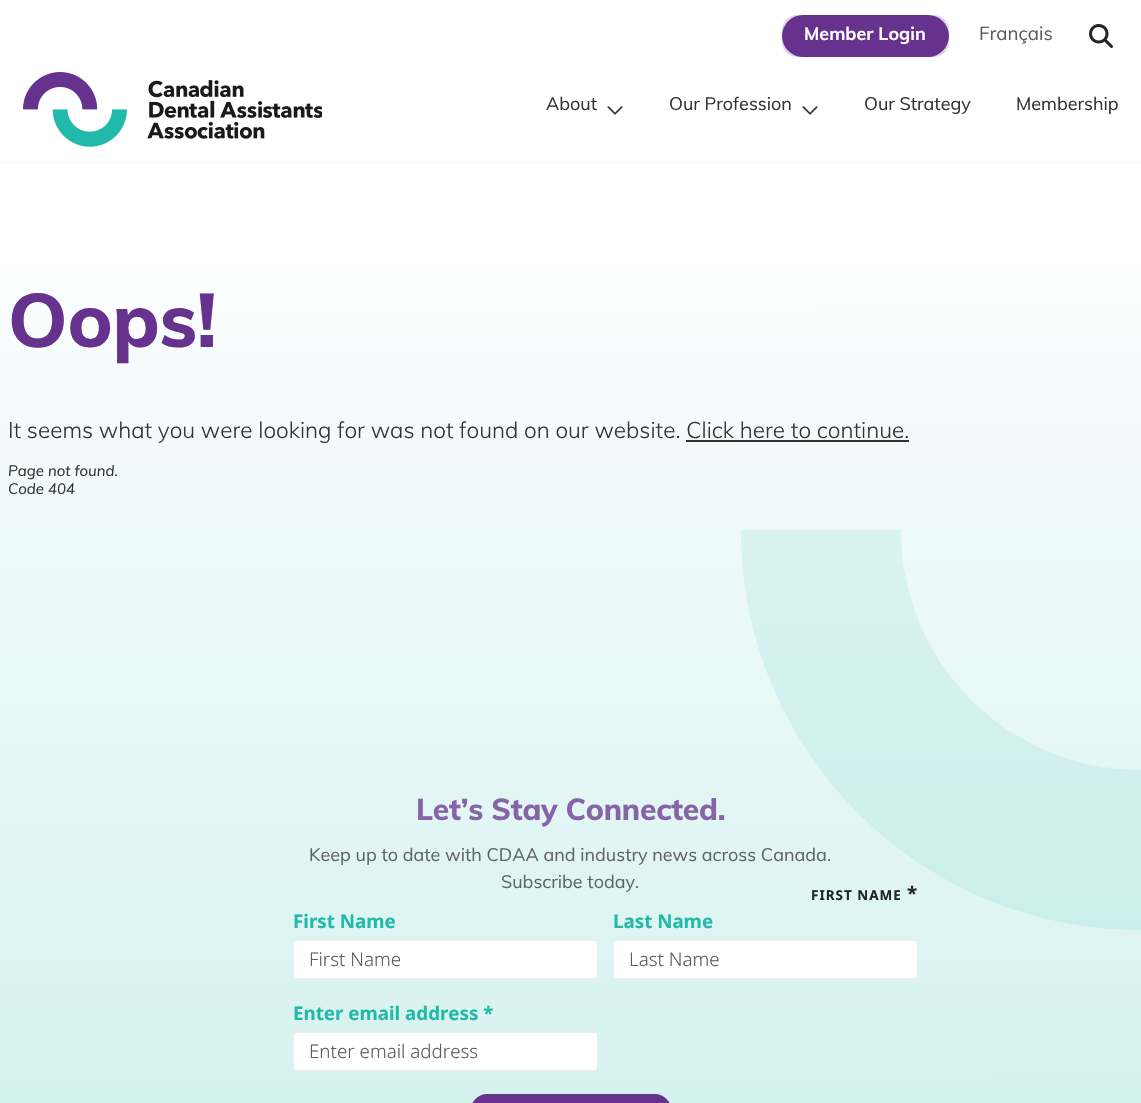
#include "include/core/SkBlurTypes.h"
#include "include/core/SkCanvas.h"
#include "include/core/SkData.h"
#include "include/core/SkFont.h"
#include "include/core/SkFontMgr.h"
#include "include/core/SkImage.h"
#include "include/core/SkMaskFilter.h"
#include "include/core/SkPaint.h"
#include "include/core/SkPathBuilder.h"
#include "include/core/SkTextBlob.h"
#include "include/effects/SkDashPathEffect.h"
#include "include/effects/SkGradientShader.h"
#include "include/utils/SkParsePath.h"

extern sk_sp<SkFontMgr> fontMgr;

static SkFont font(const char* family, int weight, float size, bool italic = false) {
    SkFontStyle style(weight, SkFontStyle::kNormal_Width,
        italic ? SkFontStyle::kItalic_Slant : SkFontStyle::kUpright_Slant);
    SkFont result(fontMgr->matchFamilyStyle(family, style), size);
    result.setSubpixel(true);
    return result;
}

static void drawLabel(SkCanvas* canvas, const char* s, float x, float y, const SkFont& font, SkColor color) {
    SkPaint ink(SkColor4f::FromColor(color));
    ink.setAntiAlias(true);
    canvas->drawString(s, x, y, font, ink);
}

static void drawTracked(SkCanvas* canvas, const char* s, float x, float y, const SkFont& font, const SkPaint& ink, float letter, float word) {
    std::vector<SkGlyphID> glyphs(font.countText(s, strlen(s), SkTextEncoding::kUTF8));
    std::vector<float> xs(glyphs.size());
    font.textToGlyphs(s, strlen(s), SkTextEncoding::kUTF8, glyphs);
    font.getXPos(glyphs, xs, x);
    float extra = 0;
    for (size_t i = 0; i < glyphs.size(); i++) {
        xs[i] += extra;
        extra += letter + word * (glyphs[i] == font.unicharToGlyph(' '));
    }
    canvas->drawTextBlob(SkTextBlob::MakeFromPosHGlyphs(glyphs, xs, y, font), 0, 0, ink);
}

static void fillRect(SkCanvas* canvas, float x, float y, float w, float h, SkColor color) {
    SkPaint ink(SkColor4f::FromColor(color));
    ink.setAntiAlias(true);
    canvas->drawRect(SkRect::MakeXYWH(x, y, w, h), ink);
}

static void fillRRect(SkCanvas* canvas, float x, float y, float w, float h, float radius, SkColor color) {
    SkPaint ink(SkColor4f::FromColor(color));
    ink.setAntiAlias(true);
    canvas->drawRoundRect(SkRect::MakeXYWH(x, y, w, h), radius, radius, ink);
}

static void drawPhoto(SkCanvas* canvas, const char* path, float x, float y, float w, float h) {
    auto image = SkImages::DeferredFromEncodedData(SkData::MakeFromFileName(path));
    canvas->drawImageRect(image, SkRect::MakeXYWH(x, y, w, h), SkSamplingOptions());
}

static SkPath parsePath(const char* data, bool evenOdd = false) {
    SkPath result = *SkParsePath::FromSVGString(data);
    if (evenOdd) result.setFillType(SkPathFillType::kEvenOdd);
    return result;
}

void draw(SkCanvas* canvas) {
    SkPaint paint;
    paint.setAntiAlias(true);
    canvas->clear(0xFFFFFFFF);
    fillRect(canvas, 0, 162, 1141, 1, 0xFFE9F8F6);
    fillRRect(canvas, 782, 15, 167, 42, 15, 0xFFE1D6E8);
    fillRRect(canvas, 782, 15, 167, 42, 21, 0xFF67318E);
    SkFont font1 = font("Muli", 700, 18);
    drawLabel(canvas, "Member Login", 804, 40, font1, 0xFFFFFFFF);
    SkFont font2 = font("Muli", 400, 18.75f);
    drawLabel(canvas, "Français", 979, 40, font2, 0xFF5C5C5C);
    drawPhoto(canvas, "assets/img1.png", 1089, 24, 24, 24);
    drawPhoto(canvas, "assets/img2.png", 23, 72, 299, 75);
    SkFont font3 = font("Muli", 400, 18);
    drawLabel(canvas, "About", 546, 110, font3, 0xFF333333);
    drawPhoto(canvas, "assets/img3.png", 607, 106, 16, 9);
    drawLabel(canvas, "Our Profession", 669, 110, font3, 0xFF333333);
    drawPhoto(canvas, "assets/img3.png", 802, 106, 16, 9);
    drawLabel(canvas, "Our Strategy", 864, 110, font3, 0xFF333333);
    drawLabel(canvas, "Membership", 1016, 110, font3, 0xFF333333);
    paint.setColor(0xFFE9F8F7);
    canvas->drawPath(parsePath("M741 530H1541C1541 751 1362 930 1141 930C920 930 741 751 741 530ZM901 530H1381C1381 663 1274 770 1141 770C1008 770 901 663 901 530Z", true), paint);
    {
        const SkColor colors[] = {0x0021B9A9, 0x3821B9A9};
        const float stops[] = {0, 1};
        const SkPoint ends[] = {{570, 163}, {571, 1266}};
        paint.setShader(SkGradientShader::MakeLinear(ends, colors, stops, 2, SkTileMode::kClamp));
        paint.setAlpha(255);
    }
    canvas->drawRect(SkRect::MakeXYWH(0, 271, 1141, 832), paint);
    SkFont font4 = font("Muli", 800, 75);
    paint.setShader(nullptr);
    paint.setColor(0xFF67318E);
    drawTracked(canvas, "Oops!", 8, 347, font4, paint, -0.25f, 0);
    SkFont font5 = font("Muli", 300, 22.5f);
    drawLabel(canvas, "It seems what you were looking for was not found on our website. Click here to continue.", 8, 438, font5, 0xFF333333);
    fillRect(canvas, 686, 440, 223, 2, 0xFF333333);
    SkFont font6 = font("Muli", 400, 15, true);
    drawLabel(canvas, "Page not found.", 8, 476, font6, 0xFF333333);
    drawLabel(canvas, "Code 404", 8, 494, font6, 0xFF333333);
    SkFont font7 = font("Muli", 800, 30);
    paint.setColor(0xFF8763A8);
    drawTracked(canvas, "Let’s Stay Connected.", 416, 820, font7, paint, -0.25f, 0);
    drawLabel(canvas, "Keep up to date with CDAA and industry news across Canada.", 309, 861, font3, 0xFF606564);
    drawLabel(canvas, "Subscribe today.", 501, 888, font3, 0xFF606564);
    SkFont font8 = font("Noto Sans", 700, 13.5f);
    paint.setColor(0xFF212529);
    drawTracked(canvas, "FIRST NAME", 811, 900, font8, paint, 1, 0);
    SkFont font9 = font("Noto Sans", 700, 18.75f);
    drawTracked(canvas, "*", 907, 900, font9, paint, 1, 0);
    drawLabel(canvas, "First Name", 293, 928, font9, 0xFF21B9A9);
    paint.setColor(0xFFFFFFFF);
    canvas->drawRoundRect(SkRect::MakeXYWH(293.5f, 940.5f, 304, 38), 3.5f, 3.5f, paint);
    paint.setStroke(true);
    paint.setStrokeWidth(1);
    paint.setColor(0xFFEEEEEE);
    canvas->drawRoundRect(SkRect::MakeXYWH(293.5f, 940.5f, 304, 38), 3.5f, 3.5f, paint);
    SkFont font10 = font("Noto Sans", 300, 18.75f);
    drawLabel(canvas, "First Name", 309, 966, font10, 0xFF5C5C5C);
    drawLabel(canvas, "Last Name", 613, 928, font9, 0xFF21B9A9);
    paint.setStroke(false);
    paint.setColor(0xFFFFFFFF);
    canvas->drawRoundRect(SkRect::MakeXYWH(613.5f, 940.5f, 304, 38), 3.5f, 3.5f, paint);
    paint.setStroke(true);
    paint.setColor(0xFFEEEEEE);
    canvas->drawRoundRect(SkRect::MakeXYWH(613.5f, 940.5f, 304, 38), 3.5f, 3.5f, paint);
    drawLabel(canvas, "Last Name", 629, 966, font10, 0xFF5C5C5C);
    drawLabel(canvas, "Enter email address *", 293, 1020, font9, 0xFF21B9A9);
    paint.setStroke(false);
    paint.setColor(0xFFFFFFFF);
    canvas->drawRoundRect(SkRect::MakeXYWH(293.5f, 1032.5f, 304, 38), 3.5f, 3.5f, paint);
    paint.setStroke(true);
    paint.setColor(0xFFEEEEEE);
    canvas->drawRoundRect(SkRect::MakeXYWH(293.5f, 1032.5f, 304, 38), 3.5f, 3.5f, paint);
    drawLabel(canvas, "Enter email address", 309, 1058, font10, 0xFF5C5C5C);
    fillRRect(canvas, 471, 1094, 200, 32, 23, 0xFF67318E);
}
